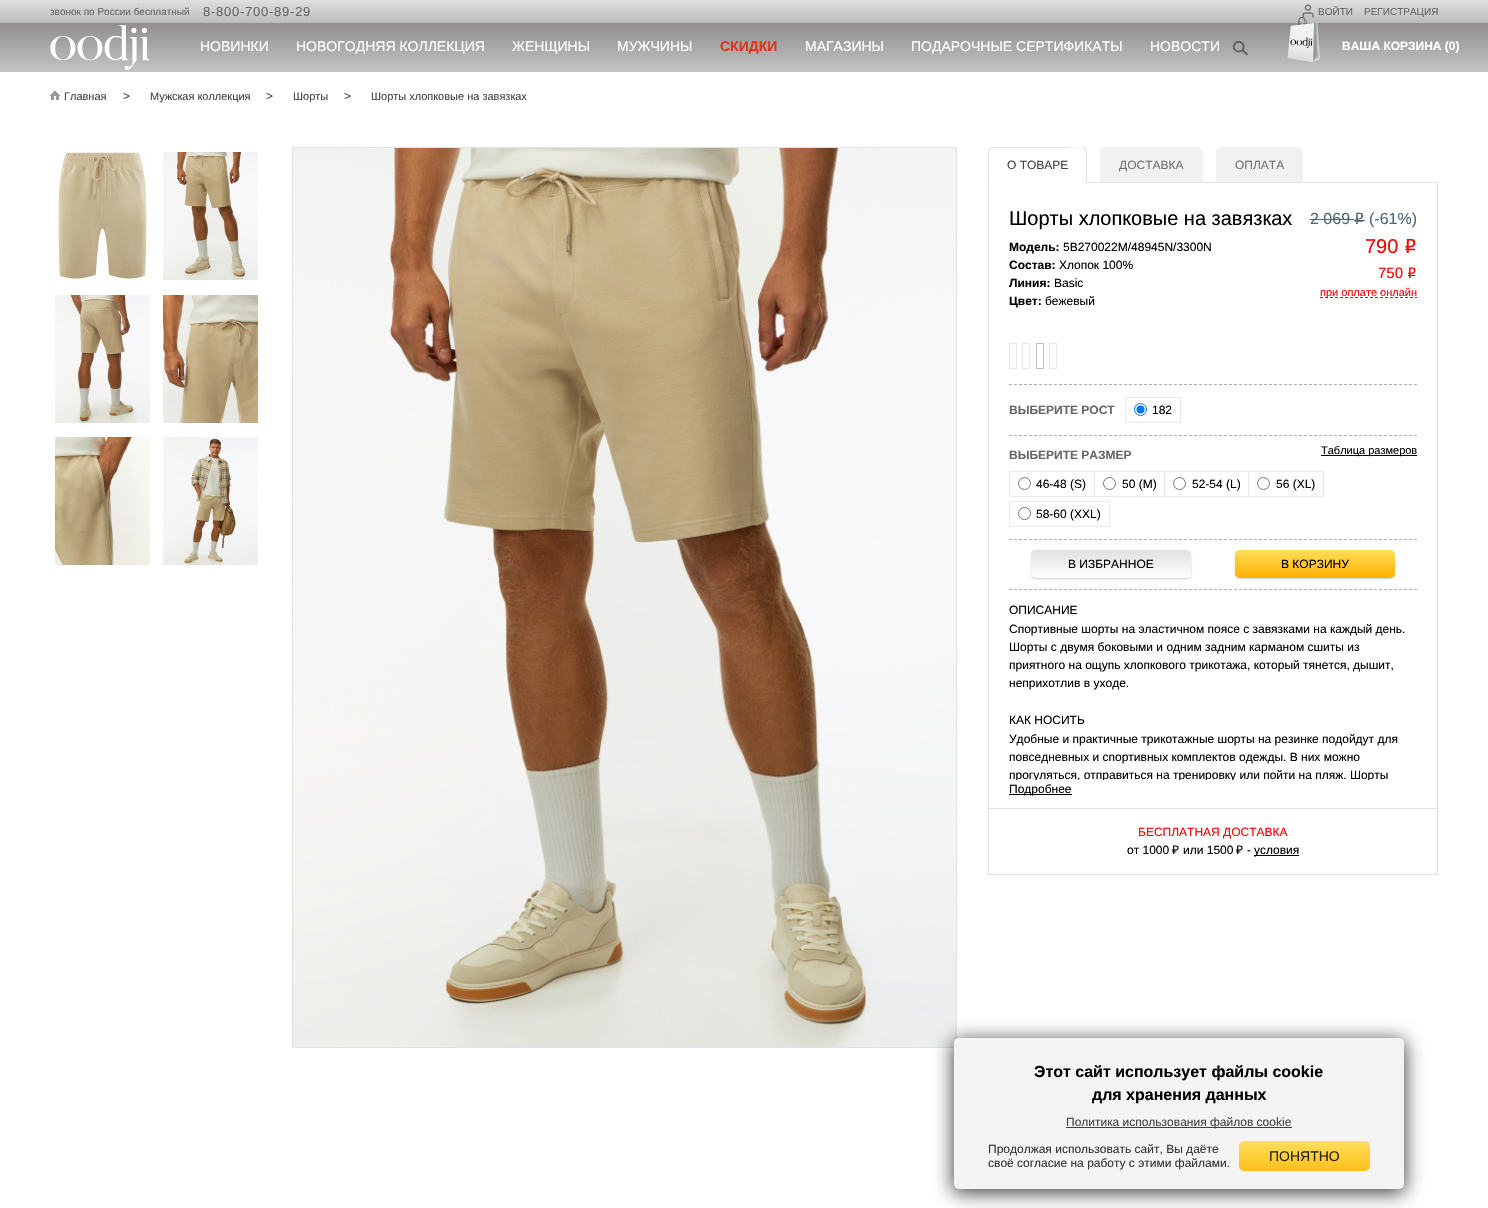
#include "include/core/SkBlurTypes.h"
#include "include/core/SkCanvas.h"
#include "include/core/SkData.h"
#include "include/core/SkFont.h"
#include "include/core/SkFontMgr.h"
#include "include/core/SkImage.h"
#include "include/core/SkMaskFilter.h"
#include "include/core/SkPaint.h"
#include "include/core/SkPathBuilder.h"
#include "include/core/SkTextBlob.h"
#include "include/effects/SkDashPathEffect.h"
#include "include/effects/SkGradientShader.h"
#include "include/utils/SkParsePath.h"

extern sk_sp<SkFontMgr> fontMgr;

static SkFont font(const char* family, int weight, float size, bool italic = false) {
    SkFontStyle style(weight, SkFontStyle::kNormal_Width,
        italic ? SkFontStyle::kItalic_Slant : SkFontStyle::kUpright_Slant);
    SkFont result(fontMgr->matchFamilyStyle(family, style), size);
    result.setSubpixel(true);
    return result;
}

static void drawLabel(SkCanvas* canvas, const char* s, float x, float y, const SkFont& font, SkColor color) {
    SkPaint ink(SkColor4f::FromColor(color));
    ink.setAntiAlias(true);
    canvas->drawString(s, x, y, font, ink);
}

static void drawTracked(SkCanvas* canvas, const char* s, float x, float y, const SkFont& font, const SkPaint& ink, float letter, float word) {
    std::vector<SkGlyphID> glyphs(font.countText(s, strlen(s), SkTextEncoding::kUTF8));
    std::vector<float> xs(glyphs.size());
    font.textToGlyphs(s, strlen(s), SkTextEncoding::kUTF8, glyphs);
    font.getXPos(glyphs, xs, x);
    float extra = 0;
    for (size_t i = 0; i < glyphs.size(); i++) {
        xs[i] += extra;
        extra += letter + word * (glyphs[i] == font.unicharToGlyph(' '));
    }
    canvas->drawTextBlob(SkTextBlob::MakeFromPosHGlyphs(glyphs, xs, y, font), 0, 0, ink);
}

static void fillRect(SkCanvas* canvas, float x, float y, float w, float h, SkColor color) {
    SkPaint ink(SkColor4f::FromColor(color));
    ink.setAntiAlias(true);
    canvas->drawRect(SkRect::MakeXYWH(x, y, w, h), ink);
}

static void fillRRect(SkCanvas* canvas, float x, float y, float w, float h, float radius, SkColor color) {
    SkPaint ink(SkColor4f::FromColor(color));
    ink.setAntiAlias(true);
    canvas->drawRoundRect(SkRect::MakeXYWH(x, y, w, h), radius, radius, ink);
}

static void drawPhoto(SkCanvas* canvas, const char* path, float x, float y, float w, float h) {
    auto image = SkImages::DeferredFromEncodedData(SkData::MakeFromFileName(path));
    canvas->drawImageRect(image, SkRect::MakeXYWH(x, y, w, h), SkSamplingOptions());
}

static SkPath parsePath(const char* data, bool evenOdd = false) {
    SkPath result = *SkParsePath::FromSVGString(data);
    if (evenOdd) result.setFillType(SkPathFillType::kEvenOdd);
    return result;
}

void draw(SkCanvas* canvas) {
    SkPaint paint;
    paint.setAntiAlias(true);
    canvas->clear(0xFFFFFFFF);
    {
        const SkColor colors[] = {0xFFE0E0E0, 0xFFBBBBBB};
        const float stops[] = {0, 1};
        const SkPoint ends[] = {{744, 0}, {744, 23}};
        paint.setShader(SkGradientShader::MakeLinear(ends, colors, stops, 2, SkTileMode::kClamp));
        paint.setAlpha(255);
    }
    canvas->drawRect(SkRect::MakeXYWH(0, 0, 1488, 23), paint);
    SkFont font1 = font("Liberation Sans", 400, 10);
    drawLabel(canvas, "звонок по России бесплатный", 50, 15, font1, 0xFF676666);
    SkFont font2 = font("Liberation Sans", 400, 13);
    paint.setShader(nullptr);
    paint.setColor(0xFF676666);
    drawTracked(canvas, "8-800-700-89-29", 203, 16, font2, paint, 0.75f, 0);
    {
        const SkColor colors[] = {0xFF908E8E, 0xFFC3C3C3};
        const float stops[] = {0, 1};
        const SkPoint ends[] = {{762, 23}, {762, 72}};
        paint.setShader(SkGradientShader::MakeLinear(ends, colors, stops, 2, SkTileMode::kClamp));
        paint.setAlpha(255);
    }
    canvas->drawRect(SkRect::MakeXYWH(0, 23, 1488, 49), paint);
    drawPhoto(canvas, "assets/img4.png", 1287, 17, 33, 45);
    drawPhoto(canvas, "assets/img1.png", 1302, 4, 12, 14);
    drawLabel(canvas, "ВОЙТИ", 1318, 15, font1, 0xFF676666);
    drawLabel(canvas, "РЕГИСТРАЦИЯ", 1364, 15, font1, 0xFF676666);
    drawPhoto(canvas, "assets/img2.png", 50, 25, 100, 45);
    SkFont font3 = font("Liberation Sans", 400, 14);
    drawLabel(canvas, "НОВИНКИ", 200, 51, font3, 0xFFFFFFFF);
    drawLabel(canvas, "НОВОГОДНЯЯ КОЛЛЕКЦИЯ", 296, 51, font3, 0xFFFFFFFF);
    drawLabel(canvas, "ЖЕНЩИНЫ", 512, 51, font3, 0xFFFFFFFF);
    drawLabel(canvas, "МУЖЧИНЫ", 617, 51, font3, 0xFFFFFFFF);
    SkFont font4 = font("Liberation Sans", 700, 14);
    drawLabel(canvas, "СКИДКИ", 720, 51, font4, 0xFFE43218);
    drawLabel(canvas, "МАГАЗИНЫ", 805, 51, font3, 0xFFFFFFFF);
    drawLabel(canvas, "ПОДАРОЧНЫЕ СЕРТИФИКАТЫ", 911, 51, font3, 0xFFFFFFFF);
    drawLabel(canvas, "НОВОСТИ", 1150, 51, font3, 0xFFFFFFFF);
    drawPhoto(canvas, "assets/img3.png", 1232, 40, 16, 16);
    SkFont font5 = font("Liberation Sans", 700, 12);
    drawLabel(canvas, "ВАША КОРЗИНА (0)", 1342, 50, font5, 0xFFFFFFFF);
    drawPhoto(canvas, "assets/img5.png", 50, 91, 10, 9);
    SkFont font6 = font("Liberation Sans", 400, 11);
    drawLabel(canvas, "Главная", 64, 100, font6, 0xFF434343);
    SkFont font7 = font("Liberation Sans", 400, 12);
    drawLabel(canvas, ">", 123, 100, font7, 0xFF434343);
    drawLabel(canvas, "Мужская коллекция", 150, 100, font6, 0xFF434343);
    drawLabel(canvas, ">", 266, 100, font7, 0xFF434343);
    drawLabel(canvas, "Шорты", 293, 100, font6, 0xFF434343);
    drawLabel(canvas, ">", 344, 100, font7, 0xFF434343);
    drawLabel(canvas, "Шорты хлопковые на завязках", 371, 100, font6, 0xFF434343);
    drawPhoto(canvas, "assets/img6.png", 55, 152, 93, 128);
    drawPhoto(canvas, "assets/img7.png", 163, 152, 95, 128);
    drawPhoto(canvas, "assets/img8.png", 55, 295, 95, 128);
    drawPhoto(canvas, "assets/img9.png", 163, 295, 95, 128);
    drawPhoto(canvas, "assets/img10.png", 55, 437, 95, 128);
    drawPhoto(canvas, "assets/img11.png", 163, 437, 95, 128);
    paint.setStroke(true);
    paint.setStrokeWidth(1);
    paint.setShader(nullptr);
    paint.setColor(0xFFE1E1E1);
    canvas->drawRect(SkRect::MakeXYWH(292.5f, 147.5f, 664, 900), paint);
    drawPhoto(canvas, "assets/img12.png", 293, 148, 663, 899);
    fillRect(canvas, 988, 182, 1, 202, 0xFFE1E1E1);
    paint.setStroke(false);
    paint.setColor(0xFFFFFFFF);
    canvas->drawPath(parsePath("M993 147H1082C1085 147 1087 149 1087 152V183H988V152C988 149 990 147 993 147Z"), paint);
    paint.setColor(0xFFE1E1E1);
    canvas->drawPath(parsePath("M993 147C992 147 990 148 989 148L990 149L993 148H1067C1068 148 1081 146 1085 149L1086 148C1085 148 1084 147 1082 147Z"), paint);
    canvas->drawPath(parsePath("M1087 183V152C1087 150.5 1086.5 149 1085.5 148.5L1085 149C1085.5 150 1086 151 1086 152V182Z"), paint);
    paint.setColor(0xFFFFFFFF);
    canvas->drawPath(parsePath("M1087 183L1086 182H989L988 183Z"), paint);
    paint.setColor(0xFFE1E1E1);
    canvas->drawPath(parsePath("M988 183L989 182V152C989 151 989.5 150 990 149L989.5 148.5C988.5 149 988 150.5 988 152Z"), paint);
    drawLabel(canvas, "О ТОВАРЕ", 1007, 169, font7, 0xFF434343);
    paint.setColor(0xFFF1F1F1);
    canvas->drawPath(parsePath("M1105 147.5H1198C1200.5 147.5 1202.5 149.5 1202.5 152V182.5H1100.5V152C1100.5 149.5 1102.5 147.5 1105 147.5Z"), paint);
    paint.setStroke(true);
    canvas->drawPath(parsePath("M1105 147.5H1198C1200.5 147.5 1202.5 149.5 1202.5 152V182.5H1100.5V152C1100.5 149.5 1102.5 147.5 1105 147.5Z"), paint);
    drawLabel(canvas, "ДОСТАВКА", 1119, 169, font7, 0xFF717171);
    paint.setStroke(false);
    canvas->drawPath(parsePath("M1221 147.5H1298C1300.5 147.5 1302.5 149.5 1302.5 152V182.5H1216.5V152C1216.5 149.5 1218.5 147.5 1221 147.5Z"), paint);
    paint.setStroke(true);
    canvas->drawPath(parsePath("M1221 147.5H1298C1300.5 147.5 1302.5 149.5 1302.5 152V182.5H1216.5V152C1216.5 149.5 1218.5 147.5 1221 147.5Z"), paint);
    drawLabel(canvas, "ОПЛАТА", 1235, 169, font7, 0xFF717171);
    fillRect(canvas, 1087, 182, 351, 1, 0xFFE1E1E1);
    fillRect(canvas, 1437, 808, 1, 67, 0xFFE1E1E1);
    fillRect(canvas, 1437, 182, 1, 627, 0xFFE1E1E1);
    SkFont font8 = font("Liberation Sans", 400, 20);
    drawLabel(canvas, "Шорты хлопковые на завязках", 1009, 225, font8, 0xFF000000);
    drawLabel(canvas, "Модель:", 1009, 251, font5, 0xFF000000);
    drawLabel(canvas, "5B270022M/48945N/3300N", 1063, 251, font7, 0xFF000000);
    drawLabel(canvas, "Состав:", 1009, 269, font5, 0xFF000000);
    drawLabel(canvas, "Хлопок 100%", 1059, 269, font7, 0xFF000000);
    drawLabel(canvas, "Линия:", 1009, 287, font5, 0xFF000000);
    drawLabel(canvas, "Basic", 1054, 287, font7, 0xFF000000);
    drawLabel(canvas, "Цвет:", 1009, 305, font5, 0xFF000000);
    drawLabel(canvas, "бежевый", 1045, 305, font7, 0xFF000000);
    SkFont font9 = font("Liberation Sans", 400, 16);
    drawLabel(canvas, "2 069", 1310, 224, font9, 0xFF4E6875);
    fillRect(canvas, 1310, 219, 44, 1, 0xFF4E6875);
    SkFont font10 = font("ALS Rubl", 400, 16);
    drawLabel(canvas, "o", 1354, 224, font10, 0xFF4E6875);
    fillRect(canvas, 1354, 220, 11, 1, 0xFF4E6875);
    drawLabel(canvas, "(-61%)", 1369, 224, font9, 0xFF4E6875);
    drawLabel(canvas, "790", 1365, 253, font8, 0xFFFF0000);
    SkFont font11 = font("ALS Rubl", 400, 20);
    drawLabel(canvas, "o", 1404, 253, font11, 0xFFFF0000);
    SkFont font12 = font("Liberation Sans", 400, 15);
    drawLabel(canvas, "750", 1378, 278, font12, 0xFFFF0000);
    SkFont font13 = font("ALS Rubl", 400, 15);
    drawLabel(canvas, "o", 1407, 278, font13, 0xFFFF0000);
    paint.setColor(0xFFFF0000);
    paint.setPathEffect(SkDashPathEffect::Make({{3, 2}}, 0));
    canvas->drawPath(parsePath("M1320 297.5H1417"), paint);
    paint.setPathEffect(nullptr);
    drawLabel(canvas, "при оплате онлайн", 1320, 296, font6, 0xFFFF0000);
    paint.setColor(0xFFE8E8E8);
    canvas->drawRect(SkRect::MakeXYWH(1009.5f, 343.5f, 7, 25), paint);
    canvas->drawRect(SkRect::MakeXYWH(1022.5f, 343.5f, 7, 25), paint);
    paint.setColor(0xFFBFBFBF);
    canvas->drawRect(SkRect::MakeXYWH(1036.5f, 343.5f, 7, 25), paint);
    paint.setColor(0xFFE8E8E8);
    canvas->drawRect(SkRect::MakeXYWH(1049.5f, 343.5f, 7, 25), paint);
    fillRect(canvas, 988, 874, 450, 1, 0xFFE1E1E1);
    fillRect(canvas, 988, 808, 1, 67, 0xFFE1E1E1);
    fillRect(canvas, 988, 808, 450, 1, 0xFFE1E1E1);
    fillRect(canvas, 988, 384, 1, 425, 0xFFE1E1E1);
    paint.setColor(0xFFB0B0B0);
    paint.setPathEffect(SkDashPathEffect::Make({{3, 2}}, 0));
    canvas->drawPath(parsePath("M1009 384.5H1417"), paint);
    paint.setPathEffect(nullptr);
    drawLabel(canvas, "ВЫБЕРИТЕ РОСТ", 1009, 414, font5, 0xFF676666);
    paint.setColor(0xFFE9E9E9);
    canvas->drawRect(SkRect::MakeXYWH(1125.5f, 397.5f, 55, 25), paint);
    paint.setColor(0xFF0075FF);
    canvas->drawCircle(1140.5f, 409.5f, 6, paint);
    paint.setStroke(false);
    canvas->drawCircle(1140.5f, 409.5f, 4, paint);
    drawLabel(canvas, "182", 1152, 414, font7, 0xFF000000);
    paint.setStroke(true);
    paint.setColor(0xFFB0B0B0);
    paint.setPathEffect(SkDashPathEffect::Make({{3, 2}}, 0));
    canvas->drawPath(parsePath("M1009 435.5H1417"), paint);
    paint.setPathEffect(nullptr);
    drawLabel(canvas, "ВЫБЕРИТЕ РАЗМЕР", 1009, 459, font5, 0xFF676666);
    fillRect(canvas, 1321, 455, 96, 1, 0xFF000000);
    drawLabel(canvas, "Таблица размеров", 1321, 454, font6, 0xFF000000);
    paint.setColor(0xFFE9E9E9);
    canvas->drawRect(SkRect::MakeXYWH(1009.5f, 471.5f, 85, 25), paint);
    paint.setColor(0xFF767676);
    canvas->drawCircle(1024.5f, 483.5f, 6, paint);
    drawLabel(canvas, "46-48 (S)", 1036, 488, font7, 0xFF000000);
    paint.setColor(0xFFE9E9E9);
    canvas->drawRect(SkRect::MakeXYWH(1094.5f, 471.5f, 70, 25), paint);
    paint.setColor(0xFF767676);
    canvas->drawCircle(1109.5f, 483.5f, 6, paint);
    drawLabel(canvas, "50 (M)", 1122, 488, font7, 0xFF000000);
    paint.setColor(0xFFE9E9E9);
    canvas->drawRect(SkRect::MakeXYWH(1164.5f, 471.5f, 84, 25), paint);
    paint.setColor(0xFF767676);
    canvas->drawCircle(1179.5f, 483.5f, 6, paint);
    drawLabel(canvas, "52-54 (L)", 1192, 488, font7, 0xFF000000);
    paint.setColor(0xFFE9E9E9);
    canvas->drawRect(SkRect::MakeXYWH(1248.5f, 471.5f, 75, 25), paint);
    paint.setColor(0xFF767676);
    canvas->drawCircle(1263.5f, 483.5f, 6, paint);
    drawLabel(canvas, "56 (XL)", 1276, 488, font7, 0xFF000000);
    paint.setColor(0xFFE9E9E9);
    canvas->drawRect(SkRect::MakeXYWH(1009.5f, 501.5f, 100, 25), paint);
    paint.setColor(0xFF767676);
    canvas->drawCircle(1024.5f, 513.5f, 6, paint);
    drawLabel(canvas, "58-60 (XXL)", 1036, 518, font7, 0xFF000000);
    paint.setColor(0xFFB0B0B0);
    paint.setPathEffect(SkDashPathEffect::Make({{3, 2}}, 0));
    canvas->drawPath(parsePath("M1009 539.5H1417"), paint);
    paint.setPathEffect(nullptr);
    paint.setStroke(false);
    paint.setColor(0x33000000);
    paint.setMaskFilter(SkMaskFilter::MakeBlur(kNormal_SkBlurStyle, 1));
    canvas->drawRoundRect(SkRect::MakeXYWH(1031, 551, 160, 28), 5, 5, paint);
    paint.setMaskFilter(nullptr);
    {
        const SkColor colors[] = {0xFFE0E0E0, 0xFFFFFFFF};
        const float stops[] = {0, 1};
        const SkPoint ends[] = {{1111, 550}, {1111, 578}};
        paint.setShader(SkGradientShader::MakeLinear(ends, colors, stops, 2, SkTileMode::kClamp));
        paint.setAlpha(255);
    }
    canvas->drawRoundRect(SkRect::MakeXYWH(1031, 550, 160, 28), 5, 5, paint);
    drawLabel(canvas, "В ИЗБРАННОЕ", 1068, 568, font7, 0xFF000000);
    paint.setShader(nullptr);
    paint.setColor(0x33000000);
    paint.setMaskFilter(SkMaskFilter::MakeBlur(kNormal_SkBlurStyle, 1));
    canvas->drawRoundRect(SkRect::MakeXYWH(1235, 551, 160, 28), 5, 5, paint);
    paint.setMaskFilter(nullptr);
    {
        const SkColor colors[] = {0xFFFFDE5A, 0xFFFFB100};
        const float stops[] = {0, 1};
        const SkPoint ends[] = {{1315, 550}, {1315, 578}};
        paint.setShader(SkGradientShader::MakeLinear(ends, colors, stops, 2, SkTileMode::kClamp));
        paint.setAlpha(255);
    }
    canvas->drawRoundRect(SkRect::MakeXYWH(1235, 550, 160, 28), 5, 5, paint);
    drawLabel(canvas, "В КОРЗИНУ", 1281, 568, font7, 0xFF000000);
    paint.setStroke(true);
    paint.setShader(nullptr);
    paint.setColor(0xFFB0B0B0);
    paint.setPathEffect(SkDashPathEffect::Make({{3, 2}}, 0));
    canvas->drawPath(parsePath("M1009 589.5H1417"), paint);
    paint.setPathEffect(nullptr);
    drawLabel(canvas, "ОПИСАНИЕ", 1009, 614, font7, 0xFF000000);
    drawLabel(canvas, "Спортивные шорты на эластичном поясе с завязками на каждый день.", 1009, 633, font7, 0xFF000000);
    drawLabel(canvas, "Шорты с двумя боковыми и одним задним карманом сшиты из", 1009, 651, font7, 0xFF000000);
    drawLabel(canvas, "приятного на ощупь хлопкового трикотажа, который тянется, дышит,", 1009, 669, font7, 0xFF000000);
    drawLabel(canvas, "неприхотлив в уходе.", 1009, 687, font7, 0xFF000000);
    drawLabel(canvas, "КАК НОСИТЬ", 1009, 724, font7, 0xFF000000);
    drawLabel(canvas, "Удобные и практичные трикотажные шорты на резинке подойдут для", 1009, 743, font7, 0xFF000000);
    drawLabel(canvas, "повседневных и спортивных комплектов одежды. В них можно", 1009, 761, font7, 0xFF000000);
    canvas->save();
    canvas->clipRect(SkRect::MakeXYWH(1009, 600, 408, 180));
    drawLabel(canvas, "прогуляться, отправиться на тренировку или пойти на пляж. Шорты", 1009, 779, font7, 0xFF000000);
    canvas->restore();
    fillRect(canvas, 1009, 794, 63, 1, 0xFF000000);
    drawLabel(canvas, "Подробнее", 1009, 793, font7, 0xFF000000);
    drawLabel(canvas, "БЕСПЛАТНАЯ ДОСТАВКА", 1138, 836, font7, 0xFFFF0000);
    drawLabel(canvas, "от 1000", 1127, 854, font7, 0xFF000000);
    SkFont font14 = font("Noto Sans", 400, 12);
    drawLabel(canvas, "₽", 1172, 854, font14, 0xFF000000);
    drawLabel(canvas, "или 1500", 1183, 854, font7, 0xFF000000);
    drawLabel(canvas, "₽", 1236, 854, font14, 0xFF000000);
    drawLabel(canvas, "-", 1247, 854, font7, 0xFF000000);
    fillRect(canvas, 1254, 855, 45, 1, 0xFF000000);
    drawLabel(canvas, "условия", 1254, 854, font7, 0xFF000000);
    paint.setStroke(false);
    paint.setColor(0xBF000000);
    paint.setMaskFilter(SkMaskFilter::MakeBlur(kNormal_SkBlurStyle, 9.5f));
    canvas->drawRoundRect(SkRect::MakeXYWH(953, 1040, 452, 153), 6, 6, paint);
    paint.setMaskFilter(nullptr);
    fillRRect(canvas, 954, 1038, 450, 151, 5, 0xFFF4F4F4);
    SkFont font15 = font("Liberation Sans", 700, 16);
    drawLabel(canvas, "Этот сайт использует файлы cookie", 1034, 1077, font15, 0xFF000000);
    drawLabel(canvas, "для хранения данных", 1092, 1100, font15, 0xFF000000);
    fillRect(canvas, 1066, 1127, 226, 1, 0xFF404040);
    drawLabel(canvas, "Политика использования файлов cookie", 1066, 1126, font7, 0xFF434343);
    drawLabel(canvas, "Продолжая использовать сайт, Вы даёте", 988, 1153, font7, 0xFF343434);
    drawLabel(canvas, "своё согласие на работу с этими файлами.", 988, 1167, font7, 0xFF343434);
    {
        const SkColor colors[] = {0xFFFFBF1B, 0xFFFFDD57};
        const float stops[] = {0, 0.93f};
        const SkPoint ends[] = {{1305, 1171}, {1305, 1141}};
        paint.setShader(SkGradientShader::MakeLinear(ends, colors, stops, 2, SkTileMode::kClamp));
        paint.setAlpha(255);
    }
    canvas->drawRoundRect(SkRect::MakeXYWH(1239, 1141, 131, 30), 5, 5, paint);
    drawLabel(canvas, "ПОНЯТНО", 1269, 1161, font3, 0xFF232323);
}
